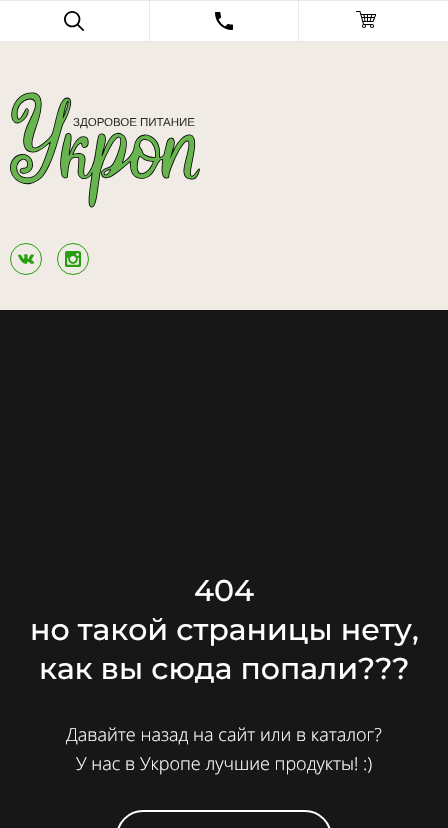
#include "include/core/SkBlurTypes.h"
#include "include/core/SkCanvas.h"
#include "include/core/SkData.h"
#include "include/core/SkFont.h"
#include "include/core/SkFontMgr.h"
#include "include/core/SkImage.h"
#include "include/core/SkMaskFilter.h"
#include "include/core/SkPaint.h"
#include "include/core/SkPathBuilder.h"
#include "include/core/SkTextBlob.h"
#include "include/effects/SkDashPathEffect.h"
#include "include/effects/SkGradientShader.h"
#include "include/utils/SkParsePath.h"

extern sk_sp<SkFontMgr> fontMgr;

static SkFont font(const char* family, int weight, float size, bool italic = false) {
    SkFontStyle style(weight, SkFontStyle::kNormal_Width,
        italic ? SkFontStyle::kItalic_Slant : SkFontStyle::kUpright_Slant);
    SkFont result(fontMgr->matchFamilyStyle(family, style), size);
    result.setSubpixel(true);
    return result;
}

static void drawLabel(SkCanvas* canvas, const char* s, float x, float y, const SkFont& font, SkColor color) {
    SkPaint ink(SkColor4f::FromColor(color));
    ink.setAntiAlias(true);
    canvas->drawString(s, x, y, font, ink);
}

static void fillRect(SkCanvas* canvas, float x, float y, float w, float h, SkColor color) {
    SkPaint ink(SkColor4f::FromColor(color));
    ink.setAntiAlias(true);
    canvas->drawRect(SkRect::MakeXYWH(x, y, w, h), ink);
}

static void drawPhoto(SkCanvas* canvas, const char* path, float x, float y, float w, float h) {
    auto image = SkImages::DeferredFromEncodedData(SkData::MakeFromFileName(path));
    canvas->drawImageRect(image, SkRect::MakeXYWH(x, y, w, h), SkSamplingOptions());
}

void draw(SkCanvas* canvas) {
    SkPaint paint;
    paint.setAntiAlias(true);
    canvas->clear(0xFFF0EBE4);
    fillRect(canvas, 0, 0, 448, 42, 0xFFE7E7E7);
    fillRect(canvas, 0, 1, 149, 40, 0xFFFFFFFF);
    drawPhoto(canvas, "assets/img1.png", 64, 11, 20, 20);
    fillRect(canvas, 150, 1, 148, 40, 0xFFFFFFFF);
    drawPhoto(canvas, "assets/img2.png", 215, 12, 18, 18);
    fillRect(canvas, 299, 1, 149, 40, 0xFFFFFFFF);
    drawPhoto(canvas, "assets/img3.png", 356, 11, 20, 17);
    drawPhoto(canvas, "assets/img4.png", 10, 92, 190, 116);
    paint.setStroke(true);
    paint.setStrokeWidth(1);
    paint.setColor(0xFF259E0F);
    canvas->drawCircle(26, 259, 15.5f, paint);
    drawPhoto(canvas, "assets/img5.png", 18, 254, 16, 10);
    canvas->drawCircle(73, 259, 15.5f, paint);
    drawPhoto(canvas, "assets/img6.png", 65, 251, 16, 16);
    fillRect(canvas, 0, 310, 448, 518, 0xFF171717);
    SkFont font1 = font("Montserrat", 500, 30);
    drawLabel(canvas, "404", 194, 601, font1, 0xFFFFFFFF);
    drawLabel(canvas, "но такой страницы нету,", 30, 640, font1, 0xFFFFFFFF);
    drawLabel(canvas, "как вы сюда попали?\077?", 39, 679, font1, 0xFFFFFFFF);
    SkFont font2 = font("Open Sans", 300, 18);
    drawLabel(canvas, "Давайте назад на сайт или в каталог?", 66, 741, font2, 0xFFFFFFFF);
    drawLabel(canvas, "У нас в Укропе лучшие продукты! :)", 76, 770, font2, 0xFFFFFFFF);
    paint.setStrokeWidth(2);
    paint.setColor(0xFFFFFFFF);
    canvas->drawRoundRect(SkRect::MakeXYWH(117, 811, 214, 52), 32.5f, 32.5f, paint);
}
